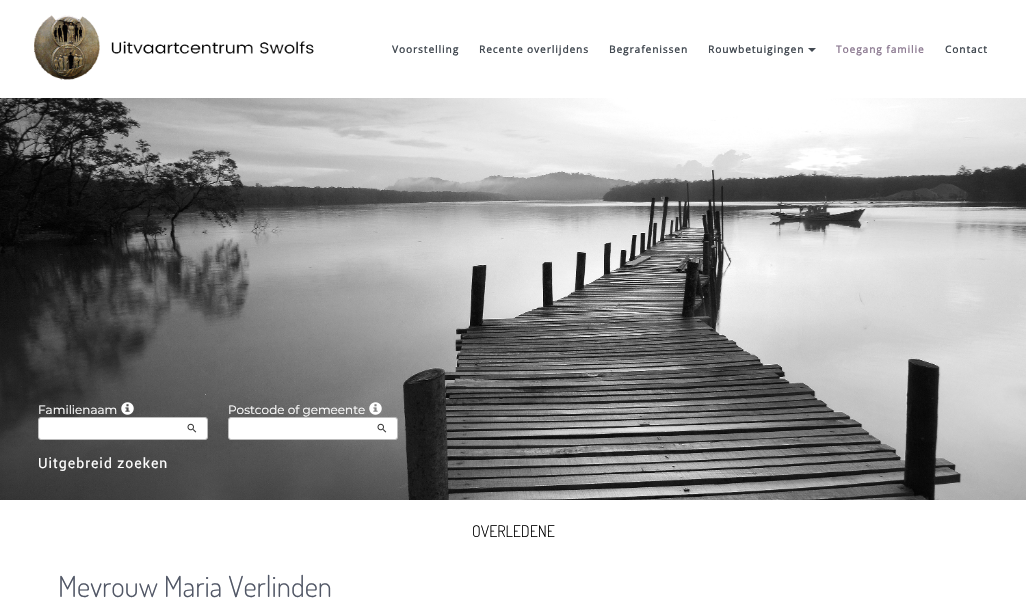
#include "include/core/SkBlurTypes.h"
#include "include/core/SkCanvas.h"
#include "include/core/SkData.h"
#include "include/core/SkFont.h"
#include "include/core/SkFontMgr.h"
#include "include/core/SkImage.h"
#include "include/core/SkMaskFilter.h"
#include "include/core/SkPaint.h"
#include "include/core/SkPathBuilder.h"
#include "include/core/SkTextBlob.h"
#include "include/effects/SkDashPathEffect.h"
#include "include/effects/SkGradientShader.h"
#include "include/utils/SkParsePath.h"

extern sk_sp<SkFontMgr> fontMgr;

static SkFont font(const char* family, int weight, float size, bool italic = false) {
    SkFontStyle style(weight, SkFontStyle::kNormal_Width,
        italic ? SkFontStyle::kItalic_Slant : SkFontStyle::kUpright_Slant);
    SkFont result(fontMgr->matchFamilyStyle(family, style), size);
    result.setSubpixel(true);
    return result;
}

static void drawLabel(SkCanvas* canvas, const char* s, float x, float y, const SkFont& font, SkColor color) {
    SkPaint ink(SkColor4f::FromColor(color));
    ink.setAntiAlias(true);
    canvas->drawString(s, x, y, font, ink);
}

static void drawTracked(SkCanvas* canvas, const char* s, float x, float y, const SkFont& font, const SkPaint& ink, float letter, float word) {
    std::vector<SkGlyphID> glyphs(font.countText(s, strlen(s), SkTextEncoding::kUTF8));
    std::vector<float> xs(glyphs.size());
    font.textToGlyphs(s, strlen(s), SkTextEncoding::kUTF8, glyphs);
    font.getXPos(glyphs, xs, x);
    float extra = 0;
    for (size_t i = 0; i < glyphs.size(); i++) {
        xs[i] += extra;
        extra += letter + word * (glyphs[i] == font.unicharToGlyph(' '));
    }
    canvas->drawTextBlob(SkTextBlob::MakeFromPosHGlyphs(glyphs, xs, y, font), 0, 0, ink);
}

static void drawPhoto(SkCanvas* canvas, const char* path, float x, float y, float w, float h) {
    auto image = SkImages::DeferredFromEncodedData(SkData::MakeFromFileName(path));
    canvas->drawImageRect(image, SkRect::MakeXYWH(x, y, w, h), SkSamplingOptions());
}

static SkPath parsePath(const char* data, bool evenOdd = false) {
    SkPath result = *SkParsePath::FromSVGString(data);
    if (evenOdd) result.setFillType(SkPathFillType::kEvenOdd);
    return result;
}

void draw(SkCanvas* canvas) {
    SkPaint paint;
    paint.setAntiAlias(true);
    canvas->clear(0xFFFFFFFF);
    drawPhoto(canvas, "assets/img1.png", 0, 98, 1026, 402);
    drawPhoto(canvas, "assets/img2.png", 34, 15, 280, 65);
    SkFont font1 = font("Open Sans", 700, 10);
    paint.setColor(0xFF424951);
    drawTracked(canvas, "Voorstelling", 392, 53, font1, paint, 1, 0);
    drawTracked(canvas, "Recente overlijdens", 479, 53, font1, paint, 1, 0);
    drawTracked(canvas, "Begrafenissen", 609, 53, font1, paint, 1, 0);
    drawTracked(canvas, "Rouwbetuigingen", 708, 53, font1, paint, 1, 0);
    canvas->drawPath(parsePath("M808 48H816L812 52Z"), paint);
    paint.setColor(0xFF8E7C93);
    drawTracked(canvas, "Toegang familie", 836, 53, font1, paint, 1, 0);
    paint.setColor(0xFF424951);
    drawTracked(canvas, "Contact", 945, 53, font1, paint, 1, 0);
    SkFont font2 = font("Montserrat", 100, 12);
    drawLabel(canvas, "Familienaam", 38, 414, font2, 0xFFFFFFFF);
    drawPhoto(canvas, "assets/img3.png", 121, 402, 13, 13);
    paint.setColor(0xFFFFFFFF);
    canvas->drawRoundRect(SkRect::MakeXYWH(38.5f, 417.5f, 169, 22), 2.5f, 2.5f, paint);
    paint.setStroke(true);
    paint.setStrokeWidth(1);
    paint.setColor(0xFFBBBBBB);
    canvas->drawRoundRect(SkRect::MakeXYWH(38.5f, 417.5f, 169, 22), 2.5f, 2.5f, paint);
    drawPhoto(canvas, "assets/img4.png", 187, 423, 10, 10);
    drawLabel(canvas, "Postcode of gemeente", 228, 414, font2, 0xFFFFFFFF);
    drawPhoto(canvas, "assets/img5.png", 369, 402, 13, 13);
    paint.setStroke(false);
    paint.setColor(0xFFFFFFFF);
    canvas->drawRoundRect(SkRect::MakeXYWH(228.5f, 417.5f, 169, 22), 2.5f, 2.5f, paint);
    paint.setStroke(true);
    paint.setColor(0xFFBBBBBB);
    canvas->drawRoundRect(SkRect::MakeXYWH(228.5f, 417.5f, 169, 22), 2.5f, 2.5f, paint);
    drawPhoto(canvas, "assets/img4.png", 377, 423, 10, 10);
    SkFont font3 = font("Roboto", 400, 14);
    paint.setStroke(false);
    paint.setColor(0xFFFFFFFF);
    drawTracked(canvas, "Uitgebreid zoeken", 38, 468, font3, paint, 1, 0);
    SkFont font4 = font("Dosis", 300, 16);
    drawLabel(canvas, "OVERLEDENE", 472, 537, font4, 0xFF000000);
    SkFont font5 = font("Dosis", 300, 29);
    drawLabel(canvas, "Mevrouw Maria Verlinden", 58, 597, font5, 0xFF515766);
}
